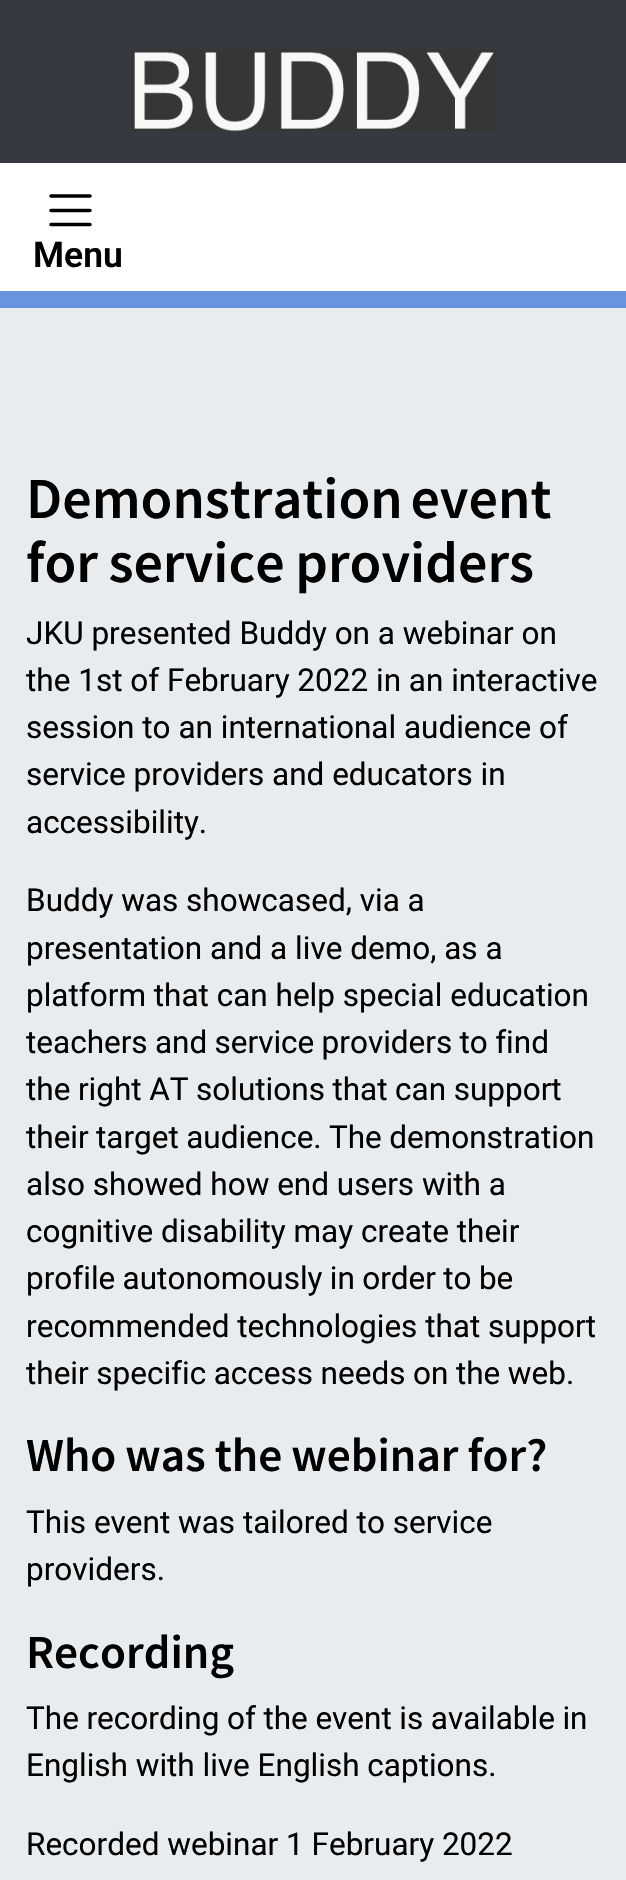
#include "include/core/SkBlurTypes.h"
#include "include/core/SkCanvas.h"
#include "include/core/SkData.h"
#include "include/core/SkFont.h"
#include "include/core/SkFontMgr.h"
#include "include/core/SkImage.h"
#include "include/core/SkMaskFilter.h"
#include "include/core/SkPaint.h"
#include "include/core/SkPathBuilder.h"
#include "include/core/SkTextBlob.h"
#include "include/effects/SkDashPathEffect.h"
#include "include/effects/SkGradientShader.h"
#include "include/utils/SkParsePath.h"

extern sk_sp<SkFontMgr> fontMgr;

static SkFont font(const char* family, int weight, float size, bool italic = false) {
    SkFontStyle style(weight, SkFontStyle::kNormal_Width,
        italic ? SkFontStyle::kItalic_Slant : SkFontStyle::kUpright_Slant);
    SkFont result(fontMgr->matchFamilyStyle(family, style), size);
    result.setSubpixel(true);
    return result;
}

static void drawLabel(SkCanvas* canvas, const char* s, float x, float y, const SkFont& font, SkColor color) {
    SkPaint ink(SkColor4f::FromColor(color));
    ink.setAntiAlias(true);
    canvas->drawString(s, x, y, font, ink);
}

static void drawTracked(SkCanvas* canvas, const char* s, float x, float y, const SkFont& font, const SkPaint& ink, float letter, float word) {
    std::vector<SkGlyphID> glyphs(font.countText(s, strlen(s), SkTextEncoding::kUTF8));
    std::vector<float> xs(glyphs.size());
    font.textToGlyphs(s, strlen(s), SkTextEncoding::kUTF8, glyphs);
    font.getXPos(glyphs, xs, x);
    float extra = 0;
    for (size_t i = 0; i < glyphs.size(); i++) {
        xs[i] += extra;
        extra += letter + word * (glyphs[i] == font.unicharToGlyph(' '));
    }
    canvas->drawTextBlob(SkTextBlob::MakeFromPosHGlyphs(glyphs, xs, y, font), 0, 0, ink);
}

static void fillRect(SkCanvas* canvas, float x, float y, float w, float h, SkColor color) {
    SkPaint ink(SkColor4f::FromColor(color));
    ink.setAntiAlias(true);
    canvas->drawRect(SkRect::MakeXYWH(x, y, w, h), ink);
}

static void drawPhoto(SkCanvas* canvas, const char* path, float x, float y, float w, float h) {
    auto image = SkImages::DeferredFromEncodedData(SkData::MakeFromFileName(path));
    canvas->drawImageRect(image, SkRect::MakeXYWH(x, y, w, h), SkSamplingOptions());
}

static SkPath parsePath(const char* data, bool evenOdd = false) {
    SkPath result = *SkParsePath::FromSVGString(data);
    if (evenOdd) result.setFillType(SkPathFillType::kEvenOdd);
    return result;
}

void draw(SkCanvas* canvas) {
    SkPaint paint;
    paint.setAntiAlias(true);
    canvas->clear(0xFFE9ECEF);
    fillRect(canvas, 0, 0, 626, 163, 0xFF343A40);
    drawPhoto(canvas, "assets/img1.png", 131, 49, 366, 83);
    fillRect(canvas, 0, 163, 626, 128, 0xFFFFFFFF);
    fillRect(canvas, 0, 291, 626, 17, 0xFF6893DD);
    paint.setStroke(true);
    paint.setStrokeWidth(3.5f);
    paint.setStrokeCap(SkPaint::kRound_Cap);
    paint.setColor(0xFF000000);
    canvas->drawPath(parsePath("M51 196H90M51 210.5H90M51 224.5H90"), paint);
    SkFont font1 = font("Roboto", 600, 35.5f);
    drawLabel(canvas, "Menu", 33, 267, font1, 0xFF000000);
    SkFont font2 = font("Source Sans Pro", 600, 58);
    paint.setStroke(false);
    drawTracked(canvas, "Demonstration event", 26, 518, font2, paint, 0, -4);
    drawTracked(canvas, "for service providers", 26, 582, font2, paint, 0, -1);
    SkFont font3 = font("Roboto", 400, 31.5f);
    drawLabel(canvas, "JKU presented Buddy on a webinar on", 26, 644, font3, 0xFF000000);
    drawLabel(canvas, "the 1st of February 2022 in an interactive", 26, 691, font3, 0xFF000000);
    drawLabel(canvas, "session to an international audience of", 26, 738, font3, 0xFF000000);
    drawLabel(canvas, "service providers and educators in", 26, 785, font3, 0xFF000000);
    drawLabel(canvas, "accessibility.", 26, 833, font3, 0xFF000000);
    drawLabel(canvas, "Buddy was showcased, via a", 26, 911, font3, 0xFF000000);
    drawLabel(canvas, "presentation and a live demo, as a", 26, 959, font3, 0xFF000000);
    drawLabel(canvas, "platform that can help special education", 26, 1006, font3, 0xFF000000);
    drawTracked(canvas, "teachers and service providers to find", 26, 1053, font3, paint, 0, -0.5f);
    drawTracked(canvas, "the right AT solutions that can support", 26, 1100, font3, paint, 0, -0.25f);
    drawTracked(canvas, "their target audience. The demonstration", 26, 1148, font3, paint, 0, -0.5f);
    drawLabel(canvas, "also showed how end users with a", 26, 1195, font3, 0xFF000000);
    drawLabel(canvas, "cognitive disability may create their", 26, 1242, font3, 0xFF000000);
    drawTracked(canvas, "profile autonomously in order to be", 26, 1289, font3, paint, 0, -0.5f);
    drawLabel(canvas, "recommended technologies that support", 26, 1337, font3, 0xFF000000);
    drawTracked(canvas, "their specific access needs on the web.", 26, 1384, font3, paint, 0, -0.25f);
    SkFont font4 = font("Source Sans Pro", 600, 47.4f);
    drawTracked(canvas, "Who was the webinar for?", 26, 1471, font4, paint, 0, -0.5f);
    drawLabel(canvas, "This event was tailored to service", 26, 1533, font3, 0xFF000000);
    drawLabel(canvas, "providers.", 26, 1580, font3, 0xFF000000);
    drawLabel(canvas, "Recording", 26, 1668, font4, 0xFF000000);
    drawTracked(canvas, "The recording of the event is available in", 26, 1729, font3, paint, 0, -0.25f);
    drawLabel(canvas, "English with live English captions.", 26, 1776, font3, 0xFF000000);
    drawLabel(canvas, "Recorded webinar 1 February 2022", 26, 1855, font3, 0xFF000000);
}
